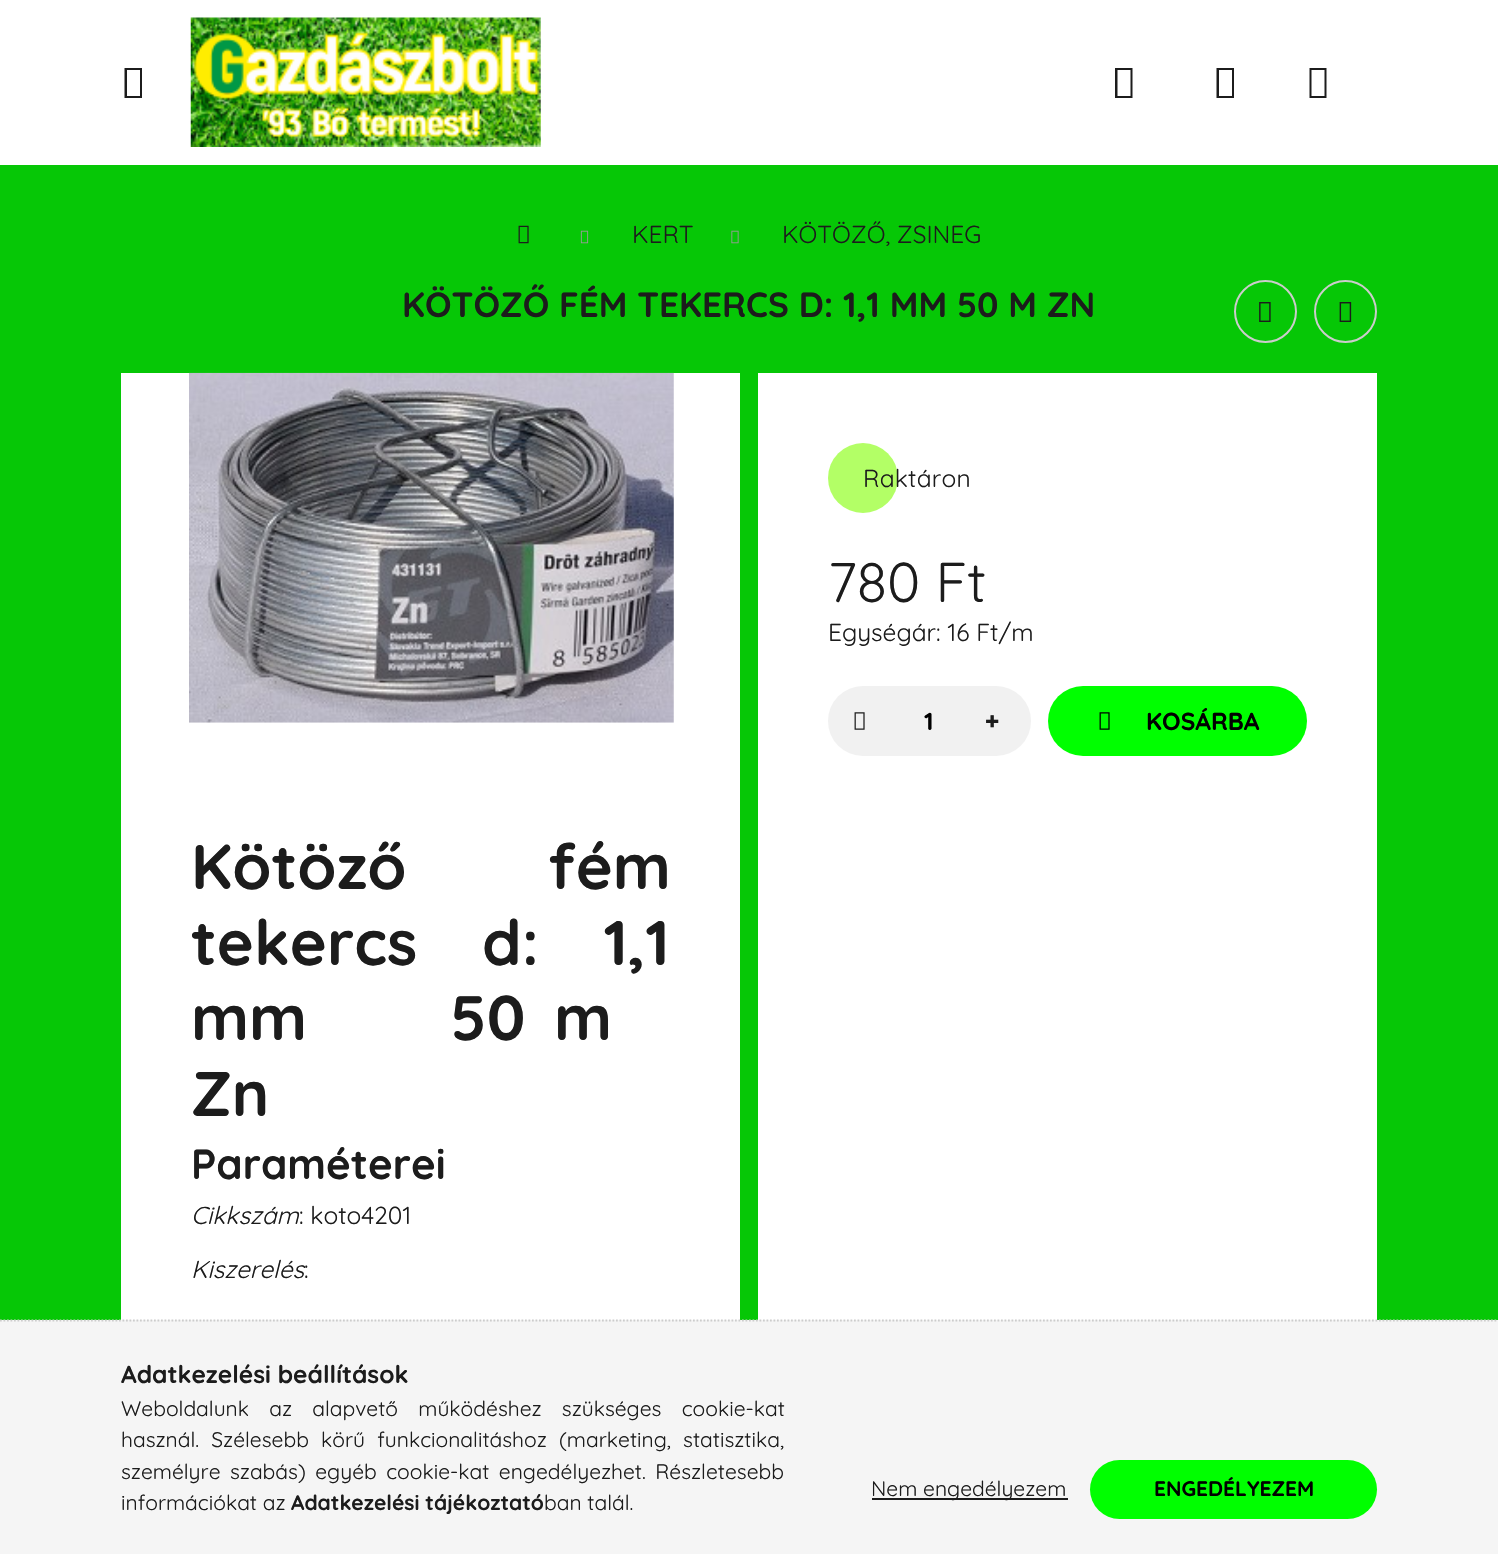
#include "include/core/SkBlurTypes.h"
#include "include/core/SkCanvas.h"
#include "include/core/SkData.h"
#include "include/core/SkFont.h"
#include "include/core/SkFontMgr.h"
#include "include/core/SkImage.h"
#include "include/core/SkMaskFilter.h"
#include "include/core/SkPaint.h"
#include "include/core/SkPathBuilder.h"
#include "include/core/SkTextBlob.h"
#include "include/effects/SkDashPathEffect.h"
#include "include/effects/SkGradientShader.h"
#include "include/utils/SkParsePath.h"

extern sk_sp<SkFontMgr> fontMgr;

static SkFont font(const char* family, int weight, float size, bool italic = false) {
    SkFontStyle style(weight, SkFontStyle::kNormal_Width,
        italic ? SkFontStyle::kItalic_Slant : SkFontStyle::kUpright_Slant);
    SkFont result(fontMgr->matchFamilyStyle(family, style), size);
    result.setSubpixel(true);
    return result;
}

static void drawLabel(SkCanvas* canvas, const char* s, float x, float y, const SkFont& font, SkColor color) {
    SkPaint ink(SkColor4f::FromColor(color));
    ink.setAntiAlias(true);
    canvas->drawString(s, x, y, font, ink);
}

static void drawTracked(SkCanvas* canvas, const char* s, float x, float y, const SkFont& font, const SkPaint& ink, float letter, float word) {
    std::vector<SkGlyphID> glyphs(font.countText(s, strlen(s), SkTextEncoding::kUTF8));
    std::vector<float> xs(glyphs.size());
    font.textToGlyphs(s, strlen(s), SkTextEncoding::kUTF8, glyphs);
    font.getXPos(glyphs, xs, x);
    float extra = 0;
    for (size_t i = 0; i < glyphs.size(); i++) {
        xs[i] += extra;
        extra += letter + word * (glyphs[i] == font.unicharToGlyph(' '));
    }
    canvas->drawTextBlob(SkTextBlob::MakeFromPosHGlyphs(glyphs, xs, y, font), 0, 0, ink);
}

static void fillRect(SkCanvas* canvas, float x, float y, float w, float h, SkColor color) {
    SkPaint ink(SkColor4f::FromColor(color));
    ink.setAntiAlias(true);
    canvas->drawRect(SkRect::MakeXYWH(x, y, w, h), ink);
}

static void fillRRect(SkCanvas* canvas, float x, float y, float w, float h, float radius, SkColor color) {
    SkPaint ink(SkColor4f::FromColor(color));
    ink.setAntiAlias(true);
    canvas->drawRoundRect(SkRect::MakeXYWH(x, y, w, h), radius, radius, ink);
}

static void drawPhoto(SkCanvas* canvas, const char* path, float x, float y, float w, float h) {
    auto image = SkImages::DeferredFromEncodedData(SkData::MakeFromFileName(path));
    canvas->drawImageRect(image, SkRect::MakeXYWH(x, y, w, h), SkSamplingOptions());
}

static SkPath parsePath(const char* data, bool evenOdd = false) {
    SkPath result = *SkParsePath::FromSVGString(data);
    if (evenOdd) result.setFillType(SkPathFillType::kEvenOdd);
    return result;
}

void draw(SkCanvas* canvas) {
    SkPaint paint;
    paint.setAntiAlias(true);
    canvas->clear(0xFF06C706);
    fillRect(canvas, 0, 0, 1498, 165, 0xFFFFFFFF);
    paint.setColor(0xFF1C1C1C);
    canvas->drawPath(parsePath("M124.5 98V68H142V98ZM127 96H140V70H127Z"), paint);
    drawPhoto(canvas, "assets/img1.png", 190, 17, 351, 130);
    canvas->drawPath(parsePath("M1115 98V68H1132.5V98ZM1117.5 96H1130.5V70H1117.5Z"), paint);
    canvas->drawPath(parsePath("M1216.5 98V68H1234V98ZM1219 96H1232V70H1219Z"), paint);
    canvas->drawPath(parsePath("M1309.5 98V68H1326.5V98ZM1311.5 96H1324.5V70H1311.5Z"), paint);
    drawPhoto(canvas, "assets/img2.png", 518, 225, 11, 19);
    drawPhoto(canvas, "assets/img3.png", 580, 230, 9, 14);
    SkFont font1 = font("Quicksand", 400, 24.5f);
    drawLabel(canvas, "KERT", 632, 243, font1, 0xFF1C1C1C);
    drawPhoto(canvas, "assets/img4.png", 731, 230, 8, 14);
    drawLabel(canvas, "KÖTÖZŐ, ZSINEG", 782, 243, font1, 0xFF1C1C1C);
    SkFont font2 = font("Quicksand", 700, 35);
    drawLabel(canvas, "KÖTÖZŐ FÉM TEKERCS D: 1,1 MM 50 M ZN", 402, 317, font2, 0xFF1C1C1C);
    paint.setStroke(true);
    paint.setStrokeWidth(2);
    paint.setColor(0xFFCCCCCC);
    canvas->drawCircle(1265.5f, 311.5f, 30.5f, paint);
    drawPhoto(canvas, "assets/img5.png", 1259, 302, 12, 20);
    canvas->drawCircle(1345.5f, 311.5f, 30.5f, paint);
    drawPhoto(canvas, "assets/img6.png", 1339, 302, 13, 20);
    fillRect(canvas, 758, 373, 619, 947, 0xFFFFFFFF);
    paint.setStroke(false);
    paint.setColor(0xFFB3FF66);
    canvas->drawCircle(863, 478, 35, paint);
    paint.setColor(0xFF1C1C1C);
    drawTracked(canvas, "Raktáron", 863, 487, font1, paint, 0.25f, 0);
    SkFont font3 = font("Quicksand", 400, 56);
    drawLabel(canvas, "780 Ft", 828, 602, font3, 0xFF1C1C1C);
    drawLabel(canvas, "Egységár: 16 Ft/m", 828, 641, font1, 0xFF1C1C1C);
    fillRRect(canvas, 828, 686, 203, 70, 35, 0xFFF1F1F1);
    drawPhoto(canvas, "assets/img7.png", 854, 712, 11, 18);
    SkFont font4 = font("Quicksand", 700, 24.5f);
    drawLabel(canvas, "1", 924, 730, font4, 0xFF000000);
    SkFont font5 = font("Noto Sans", 900, 24.5f);
    drawLabel(canvas, "+", 985, 730, font5, 0xFF1C1C1C);
    fillRRect(canvas, 1048, 686, 259, 70, 35, 0xFF00FF00);
    drawPhoto(canvas, "assets/img8.png", 1099, 712, 11, 18);
    drawLabel(canvas, "KOSÁRBA", 1146, 730, font4, 0xFF000000);
    fillRect(canvas, 121, 373, 619, 947, 0xFFFFFFFF);
    drawPhoto(canvas, "assets/img9.png", 189, 372, 485, 351);
    SkFont font6 = font("Quicksand", 700, 63);
    drawTracked(canvas, "Kötöző fém", 191, 889, font6, paint, 0, 124);
    drawTracked(canvas, "tekercs d: 1,1", 191, 965, font6, paint, 0, 47);
    drawTracked(canvas, "mm     50 m", 191, 1040, font6, paint, 0, 11);
    drawLabel(canvas, "Zn", 191, 1116, font6, 0xFF1C1C1C);
    SkFont font7 = font("Quicksand", 700, 42);
    drawLabel(canvas, "Paraméterei", 191, 1179, font7, 0xFF1C1C1C);
    SkFont font8 = font("Quicksand", 400, 24.5f, true);
    drawLabel(canvas, "Cikkszám", 191, 1224, font8, 0xFF1C1C1C);
    drawLabel(canvas, ": koto4201", 299, 1224, font1, 0xFF1C1C1C);
    drawLabel(canvas, "Kiszerelés", 191, 1278, font8, 0xFF1C1C1C);
    drawLabel(canvas, ":", 304, 1278, font1, 0xFF1C1C1C);
    fillRect(canvas, 0, 1320, 1498, 234, 0xFFF5F5F5);
    paint.setStroke(true);
    paint.setStrokeWidth(1.8f);
    paint.setColor(0xFFCCCCCC);
    paint.setPathEffect(SkDashPathEffect::Make({{1.75f, 1.75f}}, 0));
    canvas->drawPath(parsePath("M0 1320.5H1498"), paint);
    paint.setPathEffect(nullptr);
    drawLabel(canvas, "Adatkezelési beállítások", 121, 1383, font4, 0xFF1C1C1C);
    SkFont font9 = font("Quicksand", 400, 21);
    paint.setStroke(false);
    paint.setColor(0xFF1C1C1C);
    drawTracked(canvas, "Weboldalunk az alapvető működéshez szükséges cookie-kat", 121, 1416, font9, paint, 0, 14.5f);
    drawTracked(canvas, "használ. Szélesebb körű funkcionalitáshoz (marketing, statisztika,", 121, 1447, font9, paint, 0, 6.5f);
    drawTracked(canvas, "személyre szabás) egyéb cookie-kat engedélyezhet. Részletesebb", 121, 1479, font9, paint, 0, 3.75f);
    drawLabel(canvas, "információkat az", 121, 1510, font9, 0xFF1C1C1C);
    SkFont font10 = font("Quicksand", 700, 21);
    drawLabel(canvas, "Adatkezelési tájékoztató", 291, 1510, font10, 0xFF1C1C1C);
    drawLabel(canvas, "ban talál.", 544, 1510, font9, 0xFF1C1C1C);
    fillRect(canvas, 872, 1498, 196, 2, 0xFF1C1C1C);
    drawLabel(canvas, "Nem engedélyezem", 871, 1496, font9, 0xFF1C1C1C);
    fillRRect(canvas, 1090, 1460, 287, 59, 29.5f, 0xFF00FF00);
    drawLabel(canvas, "ENGEDÉLYEZEM", 1154, 1496, font10, 0xFF000000);
}
